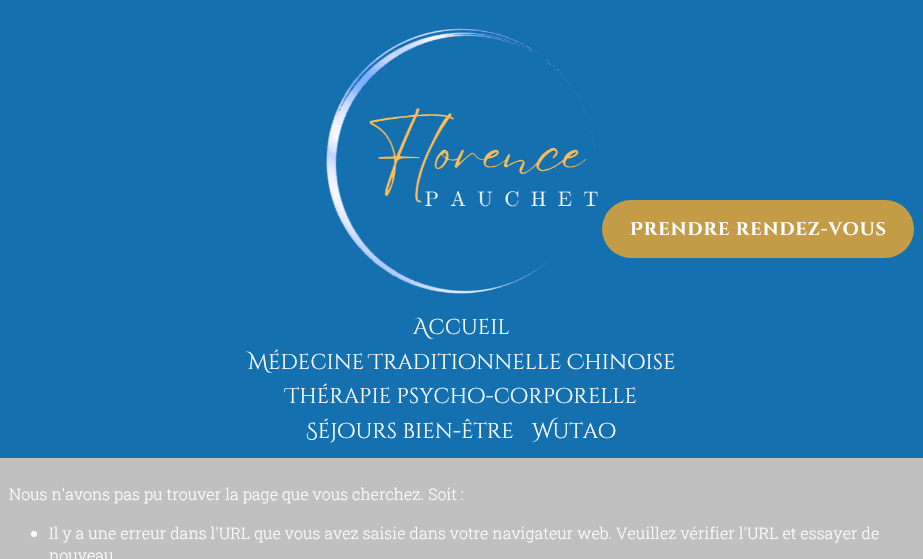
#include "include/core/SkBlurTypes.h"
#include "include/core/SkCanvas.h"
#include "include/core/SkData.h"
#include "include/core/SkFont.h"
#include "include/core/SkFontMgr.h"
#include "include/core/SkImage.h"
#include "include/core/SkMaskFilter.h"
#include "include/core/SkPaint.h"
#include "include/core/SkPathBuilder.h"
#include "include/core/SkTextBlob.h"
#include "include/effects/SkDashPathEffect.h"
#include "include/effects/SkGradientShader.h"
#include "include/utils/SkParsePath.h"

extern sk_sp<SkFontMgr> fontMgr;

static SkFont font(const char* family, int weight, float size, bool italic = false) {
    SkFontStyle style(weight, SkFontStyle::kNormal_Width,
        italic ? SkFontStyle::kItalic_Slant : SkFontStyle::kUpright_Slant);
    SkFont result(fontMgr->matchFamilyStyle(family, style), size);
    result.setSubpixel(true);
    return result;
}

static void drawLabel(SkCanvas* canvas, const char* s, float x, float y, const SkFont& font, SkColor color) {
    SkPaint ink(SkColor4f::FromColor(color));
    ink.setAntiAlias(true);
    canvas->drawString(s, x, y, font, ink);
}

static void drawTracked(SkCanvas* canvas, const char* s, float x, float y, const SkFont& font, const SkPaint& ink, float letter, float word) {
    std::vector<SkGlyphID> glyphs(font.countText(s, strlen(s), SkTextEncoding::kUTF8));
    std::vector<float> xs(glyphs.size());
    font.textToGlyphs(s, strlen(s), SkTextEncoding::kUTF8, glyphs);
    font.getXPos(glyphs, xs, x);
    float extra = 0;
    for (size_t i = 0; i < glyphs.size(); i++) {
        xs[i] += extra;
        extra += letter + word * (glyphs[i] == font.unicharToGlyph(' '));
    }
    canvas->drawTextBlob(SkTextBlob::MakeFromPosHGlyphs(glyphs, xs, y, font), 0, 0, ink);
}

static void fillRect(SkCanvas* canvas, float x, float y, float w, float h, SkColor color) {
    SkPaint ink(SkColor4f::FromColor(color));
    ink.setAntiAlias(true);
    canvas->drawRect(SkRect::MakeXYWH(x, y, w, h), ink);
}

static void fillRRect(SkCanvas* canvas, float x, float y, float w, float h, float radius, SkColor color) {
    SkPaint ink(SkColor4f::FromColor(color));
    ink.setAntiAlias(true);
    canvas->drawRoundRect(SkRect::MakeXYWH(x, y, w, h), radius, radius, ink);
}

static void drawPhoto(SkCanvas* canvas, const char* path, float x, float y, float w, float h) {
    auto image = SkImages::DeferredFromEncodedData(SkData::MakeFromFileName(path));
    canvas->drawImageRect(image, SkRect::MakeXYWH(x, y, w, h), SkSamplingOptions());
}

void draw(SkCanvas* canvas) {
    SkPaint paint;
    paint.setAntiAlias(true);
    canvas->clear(0xFFC0C0C0);
    fillRect(canvas, 0, 0, 923, 458, 0xFF1470AF);
    fillRRect(canvas, 602, 200, 312, 58, 29, 0xFFC49C48);
    SkFont font1 = font("Cinzel Decorative", 700, 18.25f);
    paint.setColor(0xFFFFFFFF);
    drawTracked(canvas, "Prendre rendez-vous", 630, 235, font1, paint, 0.9f, 0);
    drawPhoto(canvas, "assets/img1.png", 325, 28, 273, 266);
    SkFont font2 = font("Cinzel Decorative", 400, 21.5f);
    drawLabel(canvas, "Accueil", 413, 334, font2, 0xFFFFFFFF);
    drawLabel(canvas, "Médecine Traditionnelle Chinoise", 248, 369, font2, 0xFFFFFFFF);
    drawLabel(canvas, "Thérapie psycho-corporelle", 286, 403, font2, 0xFFFFFFFF);
    drawLabel(canvas, "Séjours bien-être", 306, 438, font2, 0xFFFFFFFF);
    drawLabel(canvas, "Wutao", 532, 438, font2, 0xFFFFFFFF);
    SkFont font3 = font("Roboto Slab", 300, 16);
    drawLabel(canvas, "Nous n'avons pas pu trouver la page que vous cherchez. Soit :", 9, 500, font3, 0xFFFFFFFF);
    canvas->drawCircle(34, 534, 3, paint);
    drawLabel(canvas, "Il y a une erreur dans l'URL que vous avez saisie dans votre navigateur web. Veuillez vérifier l'URL et essayer de", 49, 539, font3, 0xFFFFFFFF);
    drawLabel(canvas, "nouveau", 49, 561, font3, 0xFFFFFFFF);
}
